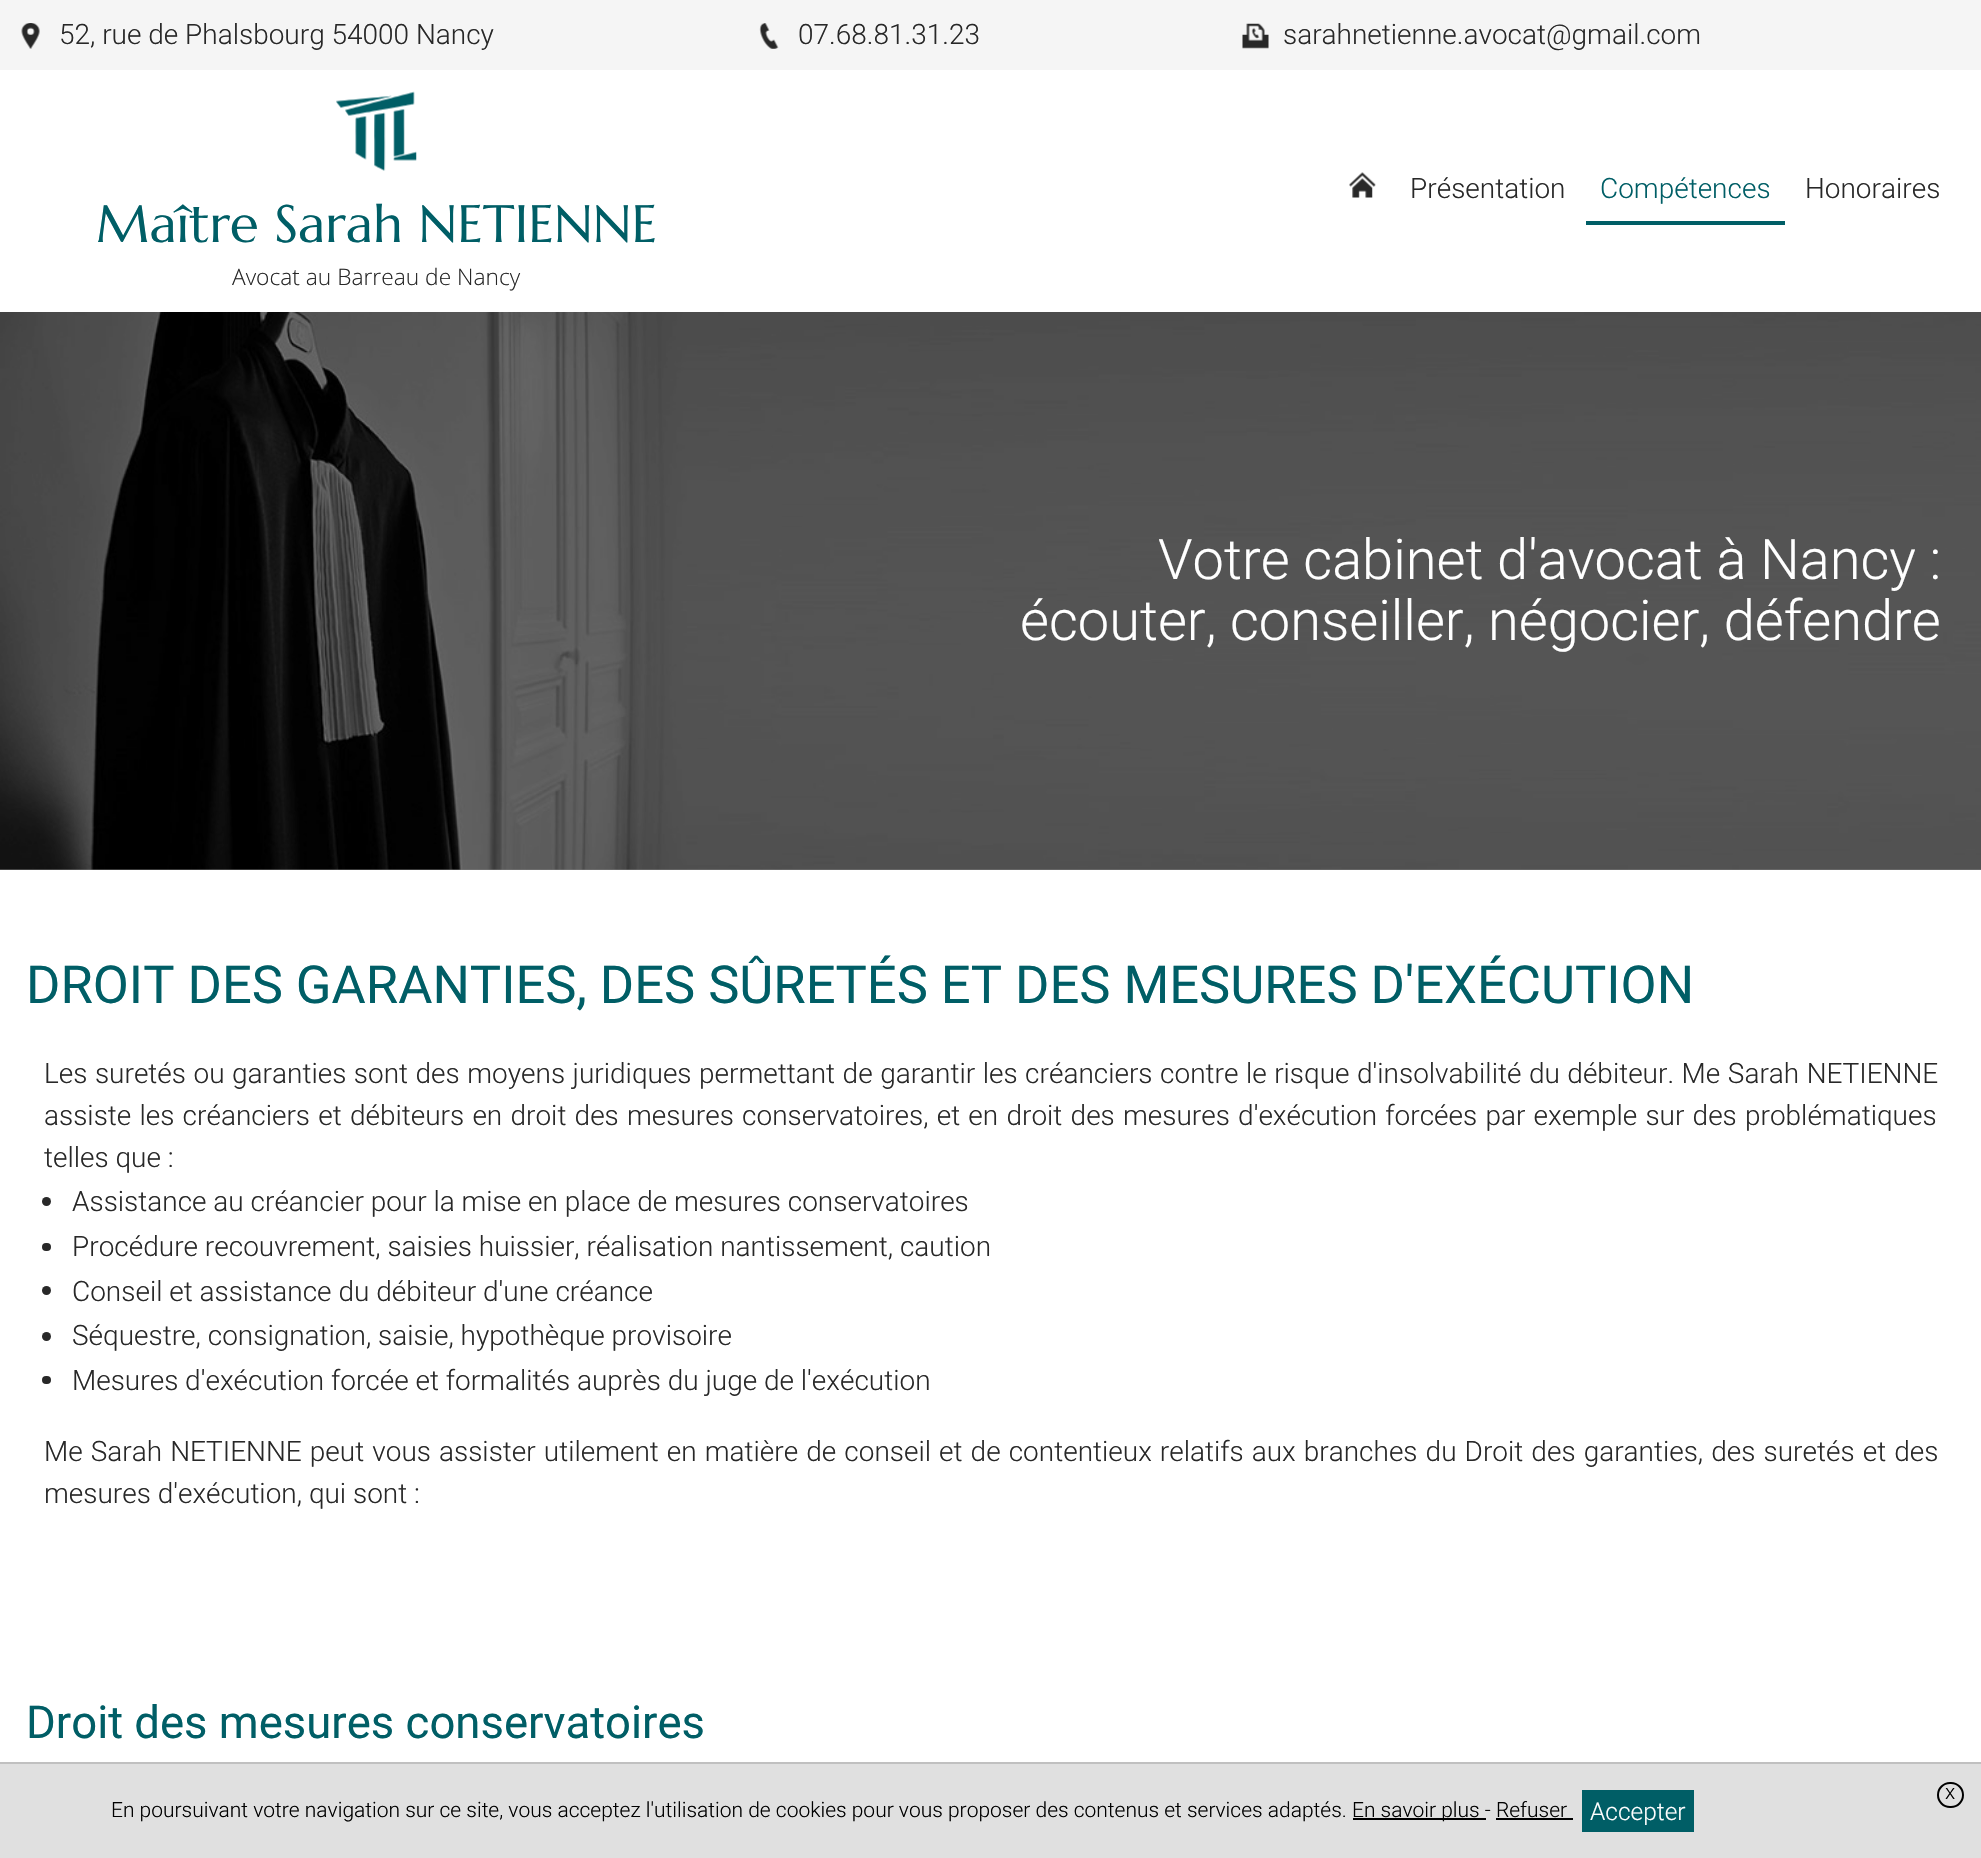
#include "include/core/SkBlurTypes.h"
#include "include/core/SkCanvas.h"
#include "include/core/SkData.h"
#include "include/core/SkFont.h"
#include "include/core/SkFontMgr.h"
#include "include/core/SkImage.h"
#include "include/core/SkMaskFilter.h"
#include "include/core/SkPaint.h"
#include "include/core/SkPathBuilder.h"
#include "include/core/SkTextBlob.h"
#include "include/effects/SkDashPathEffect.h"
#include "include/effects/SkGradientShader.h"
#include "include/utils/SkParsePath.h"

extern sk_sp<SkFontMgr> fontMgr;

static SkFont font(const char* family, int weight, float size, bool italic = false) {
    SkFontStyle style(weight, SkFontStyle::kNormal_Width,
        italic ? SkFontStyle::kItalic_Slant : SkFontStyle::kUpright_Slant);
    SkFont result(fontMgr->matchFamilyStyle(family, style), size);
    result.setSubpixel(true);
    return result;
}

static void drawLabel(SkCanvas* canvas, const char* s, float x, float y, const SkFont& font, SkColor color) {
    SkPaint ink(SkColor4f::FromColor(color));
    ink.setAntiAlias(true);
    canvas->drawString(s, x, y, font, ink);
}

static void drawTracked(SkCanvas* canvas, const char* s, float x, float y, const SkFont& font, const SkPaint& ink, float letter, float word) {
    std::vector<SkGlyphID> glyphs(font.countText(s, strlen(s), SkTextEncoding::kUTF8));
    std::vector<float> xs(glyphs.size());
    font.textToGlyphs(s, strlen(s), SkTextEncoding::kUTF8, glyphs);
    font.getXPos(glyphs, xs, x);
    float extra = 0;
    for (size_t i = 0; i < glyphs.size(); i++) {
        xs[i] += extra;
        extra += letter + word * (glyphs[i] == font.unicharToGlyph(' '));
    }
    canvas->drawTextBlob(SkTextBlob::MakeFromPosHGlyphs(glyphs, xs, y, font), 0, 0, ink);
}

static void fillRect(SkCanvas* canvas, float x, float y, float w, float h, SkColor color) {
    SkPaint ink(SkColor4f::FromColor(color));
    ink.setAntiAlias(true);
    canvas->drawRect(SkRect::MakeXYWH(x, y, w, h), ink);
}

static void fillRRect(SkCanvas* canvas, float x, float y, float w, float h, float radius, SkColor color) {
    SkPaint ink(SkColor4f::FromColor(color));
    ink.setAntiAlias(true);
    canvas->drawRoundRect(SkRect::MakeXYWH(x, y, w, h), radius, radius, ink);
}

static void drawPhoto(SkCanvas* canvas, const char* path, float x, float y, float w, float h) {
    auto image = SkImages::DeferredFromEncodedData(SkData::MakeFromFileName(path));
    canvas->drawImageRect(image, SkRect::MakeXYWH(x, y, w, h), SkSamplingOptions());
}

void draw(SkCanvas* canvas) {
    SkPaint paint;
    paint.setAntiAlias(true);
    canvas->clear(0xFFFFFFFF);
    fillRect(canvas, 0, 869, 1981, 1, 0xFF808080);
    fillRect(canvas, 0, 0, 1981, 70, 0xFFF5F5F5);
    drawPhoto(canvas, "assets/img1.png", 21, 23, 19, 26);
    SkFont font1 = font("Roboto", 300, 28);
    drawLabel(canvas, "52, rue de Phalsbourg 54000 Nancy", 59, 44, font1, 0xFF282828);
    drawPhoto(canvas, "assets/img2.png", 759, 23, 20, 26);
    drawLabel(canvas, "07.68.81.31.23", 798, 44, font1, 0xFF282828);
    drawPhoto(canvas, "assets/img3.png", 1242, 23, 27, 26);
    drawLabel(canvas, "sarahnetienne.avocat@gmail.com", 1283, 44, font1, 0xFF282828);
    drawPhoto(canvas, "assets/img4.png", 1349, 172, 27, 26);
    drawLabel(canvas, "Présentation", 1410, 198, font1, 0xFF282828);
    fillRect(canvas, 1586, 221, 199, 4, 0xFF005E66);
    drawLabel(canvas, "Compétences", 1600, 198, font1, 0xFF005E66);
    drawLabel(canvas, "Honoraires", 1805, 198, font1, 0xFF282828);
    drawPhoto(canvas, "assets/img5.png", 336, 91, 81, 80);
    SkFont font2 = font("Marcellus", 400, 52.5f);
    drawLabel(canvas, "Maître Sarah NETIENNE", 96, 242, font2, 0xFF005E66);
    SkFont font3 = font("Open Sans", 300, 22.75f);
    drawLabel(canvas, "Avocat au Barreau de Nancy", 232, 285, font3, 0xFF282828);
    drawPhoto(canvas, "assets/img6.png", 0, 312, 1981, 558);
    SkFont font4 = font("Roboto", 300, 56);
    drawLabel(canvas, "Votre cabinet d'avocat à Nancy :", 1158, 579, font4, 0xFFFFFFFF);
    drawLabel(canvas, "écouter, conseiller, négocier, défendre", 1020, 640, font4, 0xFFFFFFFF);
    SkFont font5 = font("Roboto", 400, 52.5f);
    drawLabel(canvas, "DROIT DES GARANTIES, DES SÛRETÉS ET DES MESURES D'EXÉCUTION", 26, 1003, font5, 0xFF005E66);
    paint.setColor(0xFF282828);
    drawTracked(canvas, "Les suretés ou garanties sont des moyens juridiques permettant de garantir les créanciers contre le risque d'insolvabilité du débiteur. Me Sarah NETIENNE", 44, 1083, font1, paint, 0, 0.7f);
    drawTracked(canvas, "assiste les créanciers et débiteurs en droit des mesures conservatoires, et en droit des mesures d'exécution forcées par exemple sur des problématiques", 44, 1125, font1, paint, 0, 1.4f);
    drawLabel(canvas, "telles que :", 44, 1167, font1, 0xFF282828);
    canvas->drawCircle(46.5f, 1201.5f, 4.5f, paint);
    drawLabel(canvas, "Assistance au créancier pour la mise en place de mesures conservatoires", 72, 1211, font1, 0xFF282828);
    fillRRect(canvas, 42, 1243, 9, 8, 4, 0xFF282828);
    drawLabel(canvas, "Procédure recouvrement, saisies huissier, réalisation nantissement, caution", 72, 1256, font1, 0xFF282828);
    canvas->drawCircle(46.5f, 1290.5f, 4.5f, paint);
    drawLabel(canvas, "Conseil et assistance du débiteur d'une créance", 72, 1301, font1, 0xFF282828);
    canvas->drawCircle(46.5f, 1336.5f, 4.5f, paint);
    drawLabel(canvas, "Séquestre, consignation, saisie, hypothèque provisoire", 72, 1345, font1, 0xFF282828);
    fillRRect(canvas, 42, 1376, 9, 8, 4, 0xFF282828);
    drawLabel(canvas, "Mesures d'exécution forcée et formalités auprès du juge de l'exécution", 72, 1390, font1, 0xFF282828);
    drawTracked(canvas, "Me Sarah NETIENNE peut vous assister utilement en matière de conseil et de contentieux relatifs aux branches du Droit des garanties, des suretés et des", 44, 1461, font1, paint, 0, 1.25f);
    drawLabel(canvas, "mesures d'exécution, qui sont :", 44, 1503, font1, 0xFF282828);
    SkFont font6 = font("Roboto", 400, 45.5f);
    drawLabel(canvas, "Droit des mesures conservatoires", 26, 1738, font6, 0xFF005E66);
    fillRect(canvas, 0, 1764, 1981, 94, 0xFFE0E0E0);
    fillRect(canvas, 0, 1762, 1981, 2, 0xFFC0C0C0);
    paint.setStroke(true);
    paint.setStrokeWidth(2);
    paint.setColor(0xFF000000);
    canvas->drawRoundRect(SkRect::MakeXYWH(1938, 1783, 25, 24), 12, 12, paint);
    SkFont font7 = font("Roboto", 300, 21);
    drawLabel(canvas, "x", 1945, 1799, font7, 0xFF000000);
    drawLabel(canvas, "En poursuivant votre navigation sur ce site, vous acceptez l'utilisation de cookies pour vous proposer des contenus et services adaptés.", 111, 1817, font7, 0xFF000000);
    fillRect(canvas, 1353, 1818, 133, 2, 0xFF000000);
    drawLabel(canvas, "En savoir plus - Refuser", 1352, 1817, font7, 0xFF000000);
    fillRect(canvas, 1582, 1790, 112, 42, 0xFF005E66);
    SkFont font8 = font("Roboto", 300, 24.5f);
    drawLabel(canvas, "Accepter", 1590, 1820, font8, 0xFFFFFFFF);
    fillRect(canvas, 1496, 1818, 77, 2, 0xFF000000);
}
